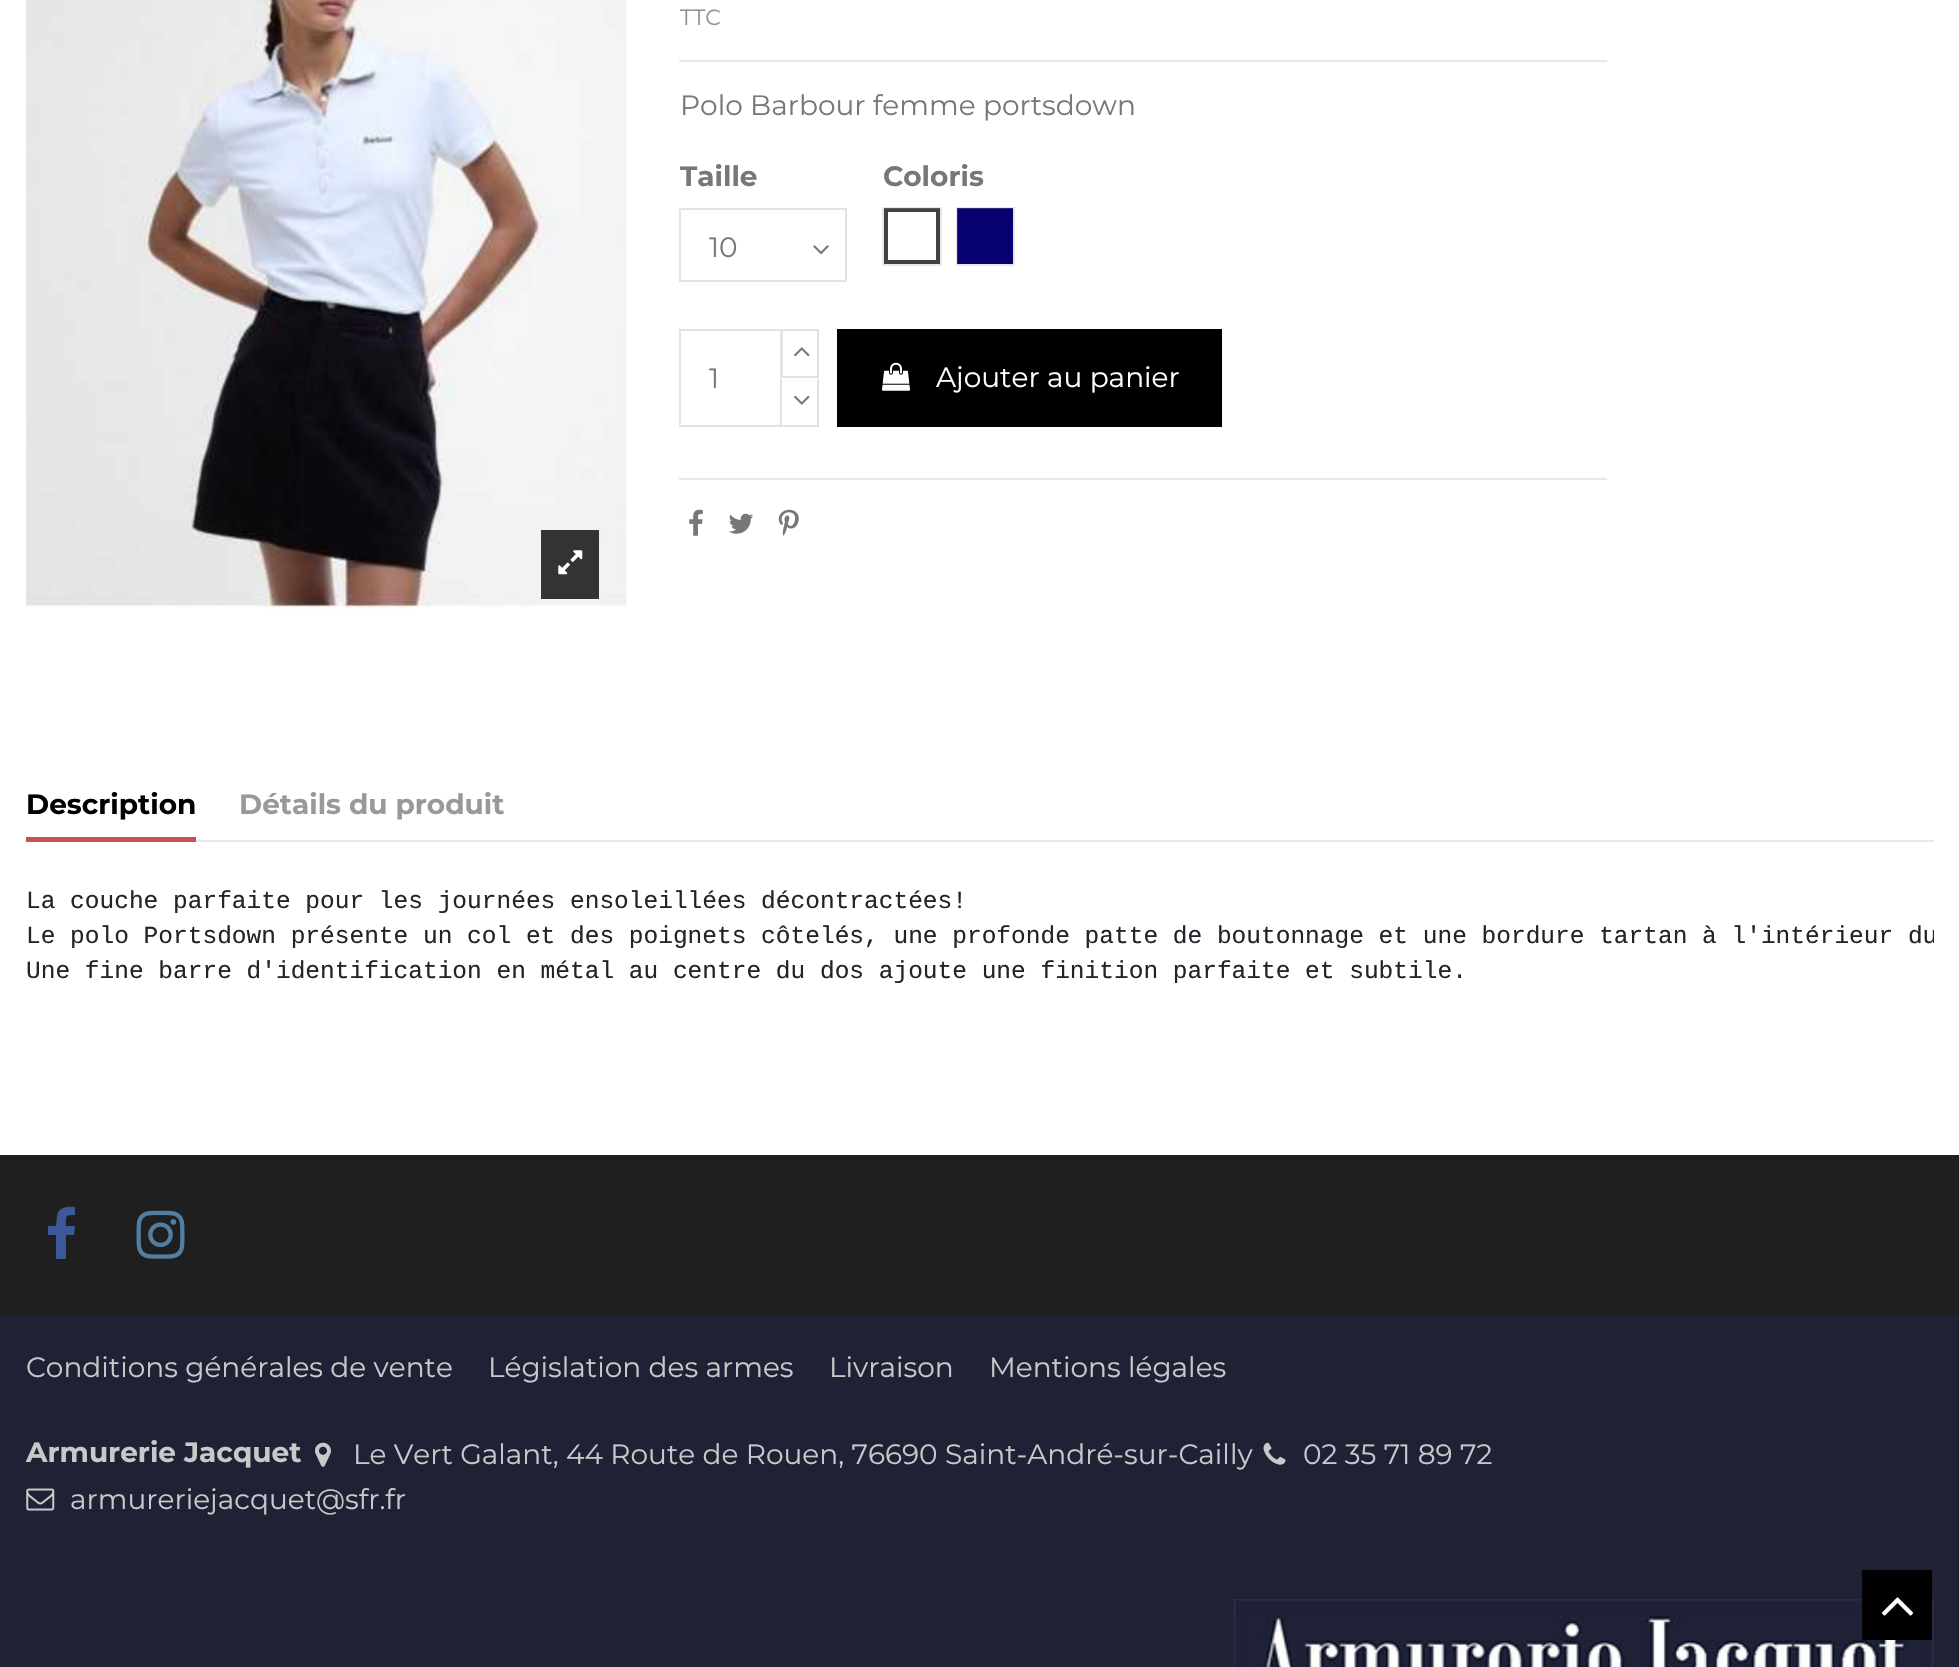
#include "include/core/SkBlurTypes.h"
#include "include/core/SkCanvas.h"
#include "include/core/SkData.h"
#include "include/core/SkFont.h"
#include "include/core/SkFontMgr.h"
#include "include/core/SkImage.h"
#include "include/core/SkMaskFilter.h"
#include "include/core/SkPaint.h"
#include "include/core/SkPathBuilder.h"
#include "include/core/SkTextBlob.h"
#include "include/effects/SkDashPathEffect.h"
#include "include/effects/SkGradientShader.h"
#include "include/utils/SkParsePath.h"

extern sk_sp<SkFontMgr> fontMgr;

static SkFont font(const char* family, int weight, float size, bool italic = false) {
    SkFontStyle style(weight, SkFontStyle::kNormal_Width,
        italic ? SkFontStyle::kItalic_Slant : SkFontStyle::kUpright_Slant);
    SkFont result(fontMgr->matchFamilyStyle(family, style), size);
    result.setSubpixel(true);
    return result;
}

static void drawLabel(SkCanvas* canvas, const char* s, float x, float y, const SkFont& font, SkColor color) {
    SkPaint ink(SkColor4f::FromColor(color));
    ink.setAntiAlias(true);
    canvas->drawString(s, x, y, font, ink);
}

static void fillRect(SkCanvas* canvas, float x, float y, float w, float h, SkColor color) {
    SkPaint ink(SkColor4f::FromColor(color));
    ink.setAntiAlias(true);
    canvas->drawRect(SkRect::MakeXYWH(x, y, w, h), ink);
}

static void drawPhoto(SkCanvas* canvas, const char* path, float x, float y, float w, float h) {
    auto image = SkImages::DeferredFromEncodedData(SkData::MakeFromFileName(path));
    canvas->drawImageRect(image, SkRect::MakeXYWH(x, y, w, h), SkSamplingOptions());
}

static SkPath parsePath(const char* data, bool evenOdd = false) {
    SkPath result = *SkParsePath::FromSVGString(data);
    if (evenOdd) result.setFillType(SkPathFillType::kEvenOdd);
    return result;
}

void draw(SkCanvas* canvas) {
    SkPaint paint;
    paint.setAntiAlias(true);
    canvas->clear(0xFFFFFFFF);
    drawPhoto(canvas, "assets/img1.png", 26, 0, 601, 609);
    fillRect(canvas, 541, 530, 58, 69, 0xFF333333);
    drawPhoto(canvas, "assets/img2.png", 558, 550, 25, 25);
    fillRect(canvas, 679, 60, 928, 2, 0xFFE8E8E8);
    SkFont font1 = font("Montserrat", 400, 22);
    drawLabel(canvas, "TTC", 680, 25, font1, 0xFF929292);
    SkFont font2 = font("Montserrat", 400, 28);
    drawLabel(canvas, "Polo Barbour femme portsdown", 680, 115, font2, 0xFF777777);
    SkFont font3 = font("Montserrat", 700, 28);
    drawLabel(canvas, "Taille", 680, 186, font3, 0xFF777777);
    drawPhoto(canvas, "assets/img3.png", 813, 245, 16, 10);
    paint.setStroke(true);
    paint.setStrokeWidth(2);
    paint.setColor(0xFFE3E3E3);
    canvas->drawRect(SkRect::MakeXYWH(680, 209, 166, 72), paint);
    drawLabel(canvas, "10", 709, 257, font2, 0xFF777777);
    drawLabel(canvas, "Coloris", 883, 186, font3, 0xFF777777);
    paint.setStrokeWidth(4);
    paint.setColor(0xFF414141);
    canvas->drawRect(SkRect::MakeXYWH(886, 210, 52, 52), paint);
    paint.setStrokeWidth(2);
    paint.setColor(0x40A1A1A1);
    canvas->drawRect(SkRect::MakeXYWH(883, 208, 58, 57), paint);
    fillRect(canvas, 957, 208, 56, 56, 0xFF070070);
    canvas->drawRect(SkRect::MakeXYWH(957, 208, 57, 57), paint);
    paint.setColor(0xFFE3E3E3);
    canvas->drawRect(SkRect::MakeXYWH(680, 330, 101, 96), paint);
    drawLabel(canvas, "1", 709, 388, font2, 0xFF777777);
    canvas->drawRect(SkRect::MakeXYWH(782, 330, 36, 47), paint);
    drawPhoto(canvas, "assets/img4.png", 794, 347, 16, 10);
    fillRect(canvas, 781, 378, 1, 47, 0xFFFFFFFF);
    paint.setStroke(false);
    canvas->drawPath(parsePath("M819 378V427L817 425V380Z"), paint);
    fillRect(canvas, 781, 425, 38, 2, 0xFFE3E3E3);
    canvas->drawPath(parsePath("M780 427V378L782 380V425Z"), paint);
    drawPhoto(canvas, "assets/img5.png", 794, 395, 16, 10);
    fillRect(canvas, 837, 329, 385, 98, 0xFF000000);
    drawPhoto(canvas, "assets/img6.png", 882, 362, 28, 29);
    drawLabel(canvas, "Ajouter au panier", 936, 387, font2, 0xFFFFFFFF);
    fillRect(canvas, 679, 478, 928, 2, 0xFFE8E8E8);
    drawPhoto(canvas, "assets/img7.png", 689, 509, 14, 27);
    drawPhoto(canvas, "assets/img8.png", 728, 513, 26, 21);
    drawPhoto(canvas, "assets/img9.png", 778, 509, 21, 27);
    fillRect(canvas, 196, 840, 1738, 2, 0xFFE8E8E8);
    fillRect(canvas, 26, 837, 170, 5, 0xFFCA5058);
    drawLabel(canvas, "Description", 26, 814, font3, 0xFF000000);
    drawLabel(canvas, "Détails du produit", 239, 814, font3, 0xFF999999);
    SkFont font4 = font("Liberation Mono", 400, 24.5f);
    drawLabel(canvas, "La couche parfaite pour les journées ensoleillées décontractées!", 26, 908, font4, 0xFF212529);
    canvas->save();
    canvas->clipRect(SkRect::MakeXYWH(26, 884, 1908, 105));
    drawLabel(canvas, "Le polo Portsdown présente un col et des poignets côtelés, une profonde patte de boutonnage et une bordure tartan à l'intérieur du", 26, 943, font4, 0xFF212529);
    canvas->restore();
    drawLabel(canvas, "Une fine barre d'identification en métal au centre du dos ajoute une finition parfaite et subtile.", 26, 978, font4, 0xFF212529);
    fillRect(canvas, 0, 1316, 1959, 351, 0xFF1F2234);
    fillRect(canvas, 0, 1155, 1959, 161, 0xFF1F1F1F);
    paint.setColor(0xFF3B5998);
    canvas->drawPath(parsePath("M75 1207V1215C65 1215 66 1216 66 1226H75L74 1235H66V1259H56V1235H48V1226H56L57 1216C58 1207 68 1206 75 1207Z"), paint);
    drawPhoto(canvas, "assets/img10.png", 136, 1210, 49, 49);
    drawLabel(canvas, "Conditions générales de vente", 26, 1377, font2, 0xFFC9C9C9);
    drawLabel(canvas, "Législation des armes", 488, 1377, font2, 0xFFC9C9C9);
    drawLabel(canvas, "Livraison", 829, 1377, font2, 0xFFC9C9C9);
    drawLabel(canvas, "Mentions légales", 989, 1377, font2, 0xFFC9C9C9);
    drawLabel(canvas, "Armurerie Jacquet", 26, 1462, font3, 0xFFC9C9C9);
    drawPhoto(canvas, "assets/img11.png", 315, 1442, 16, 25);
    drawLabel(canvas, "Le Vert Galant, 44 Route de Rouen, 76690 Saint-André-sur-Cailly", 353, 1464, font2, 0xFFC9C9C9);
    drawPhoto(canvas, "assets/img12.png", 1263, 1442, 23, 23);
    drawLabel(canvas, "02 35 71 89 72", 1303, 1464, font2, 0xFFC9C9C9);
    drawPhoto(canvas, "assets/img13.png", 26, 1488, 29, 23);
    drawLabel(canvas, "armureriejacquet@sfr.fr", 70, 1509, font2, 0xFFC9C9C9);
    drawPhoto(canvas, "assets/img14.png", 1233, 1599, 701, 68);
    fillRect(canvas, 1862, 1570, 70, 70, 0xFF000000);
    drawPhoto(canvas, "assets/img15.png", 1881, 1597, 32, 19);
}
